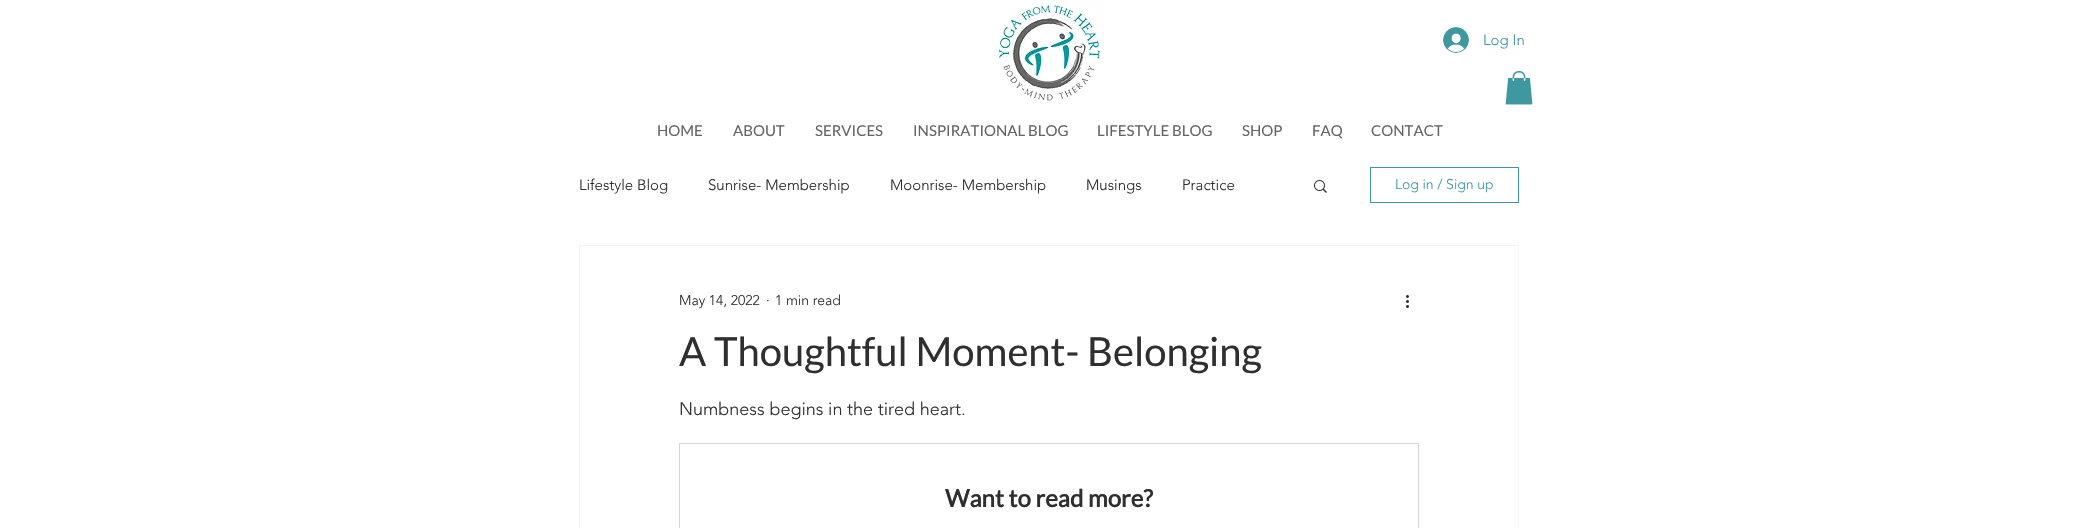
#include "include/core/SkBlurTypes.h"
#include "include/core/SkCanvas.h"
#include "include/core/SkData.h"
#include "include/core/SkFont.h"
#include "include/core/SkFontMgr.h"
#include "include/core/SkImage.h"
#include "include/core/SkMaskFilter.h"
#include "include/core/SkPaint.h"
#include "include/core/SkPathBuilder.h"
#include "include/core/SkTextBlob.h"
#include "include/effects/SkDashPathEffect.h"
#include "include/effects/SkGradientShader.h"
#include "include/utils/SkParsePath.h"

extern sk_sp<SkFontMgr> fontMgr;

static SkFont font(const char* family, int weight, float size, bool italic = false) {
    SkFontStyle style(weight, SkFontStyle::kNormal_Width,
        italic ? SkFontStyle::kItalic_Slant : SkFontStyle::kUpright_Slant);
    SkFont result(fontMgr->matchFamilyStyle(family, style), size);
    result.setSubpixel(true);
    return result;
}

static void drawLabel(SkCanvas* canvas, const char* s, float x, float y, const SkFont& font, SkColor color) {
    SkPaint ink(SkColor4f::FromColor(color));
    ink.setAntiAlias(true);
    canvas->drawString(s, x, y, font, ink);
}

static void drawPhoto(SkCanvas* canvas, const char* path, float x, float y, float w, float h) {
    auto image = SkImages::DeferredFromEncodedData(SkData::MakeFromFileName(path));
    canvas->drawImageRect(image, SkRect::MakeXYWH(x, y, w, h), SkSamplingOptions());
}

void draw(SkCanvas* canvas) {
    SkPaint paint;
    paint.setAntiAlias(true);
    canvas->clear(0xFFFFFFFF);
    drawPhoto(canvas, "assets/img1.png", 994, 0, 110, 103);
    drawPhoto(canvas, "assets/img2.png", 1443, 27, 26, 26);
    SkFont font1 = font("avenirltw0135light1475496", 300, 15);
    drawLabel(canvas, "Log In", 1483, 45, font1, 0xFF3F97A0);
    drawPhoto(canvas, "assets/img3.png", 1505, 71, 28, 34);
    SkFont font2 = font("Lato", 400, 15);
    drawLabel(canvas, "HOME", 657, 136, font2, 0xFF656565);
    drawLabel(canvas, "ABOUT", 733, 136, font2, 0xFF656565);
    drawLabel(canvas, "SERVICES", 815, 136, font2, 0xFF656565);
    drawLabel(canvas, "INSPIRATIONAL BLOG", 913, 136, font2, 0xFF656565);
    drawLabel(canvas, "LIFESTYLE BLOG", 1097, 136, font2, 0xFF656565);
    drawLabel(canvas, "SHOP", 1242, 136, font2, 0xFF656565);
    drawLabel(canvas, "FAQ", 1312, 136, font2, 0xFF656565);
    drawLabel(canvas, "CONTACT", 1371, 136, font2, 0xFF656565);
    drawLabel(canvas, "Lifestyle Blog", 579, 190, font1, 0xFF2F2F30);
    drawLabel(canvas, "Sunrise- Membership", 708, 190, font1, 0xFF2F2F30);
    drawLabel(canvas, "Moonrise- Membership", 890, 190, font1, 0xFF2F2F30);
    drawLabel(canvas, "Musings", 1086, 190, font1, 0xFF2F2F30);
    drawLabel(canvas, "Practice", 1182, 190, font1, 0xFF2F2F30);
    drawPhoto(canvas, "assets/img4.png", 1314, 180, 13, 13);
    paint.setStroke(true);
    paint.setStrokeWidth(1);
    paint.setColor(0xFF3F97A0);
    canvas->drawRect(SkRect::MakeXYWH(1370.5f, 167.5f, 148, 35), paint);
    SkFont font3 = font("avenirltw0135light1475496", 300, 14);
    drawLabel(canvas, "Log in / Sign up", 1395, 189, font3, 0xFF3F97A0);
    paint.setColor(0xFFF2F2F2);
    canvas->drawRect(SkRect::MakeXYWH(579.5f, 245.5f, 939, 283), paint);
    drawLabel(canvas, "May 14, 2022", 679, 305, font3, 0xFF2F2F30);
    drawLabel(canvas, "·", 766, 305, font3, 0xFF2F2F30);
    drawLabel(canvas, "1 min read", 775, 305, font3, 0xFF2F2F30);
    drawPhoto(canvas, "assets/img5.png", 1406, 295, 3, 13);
    SkFont font4 = font("Lato", 400, 40);
    drawLabel(canvas, "A Thoughtful Moment- Belonging", 679, 366, font4, 0xFF2F2F30);
    SkFont font5 = font("avenirltw0135light1475496", 300, 18);
    drawLabel(canvas, "Numbness begins in the tired heart.", 679, 415, font5, 0xFF2F2F30);
    paint.setColor(0xFFD5D5D6);
    canvas->drawRect(SkRect::MakeXYWH(679.5f, 443.5f, 739, 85), paint);
    SkFont font6 = font("Lato", 700, 24);
    drawLabel(canvas, "Want to read more?", 945, 507, font6, 0xFF2F2F30);
}
